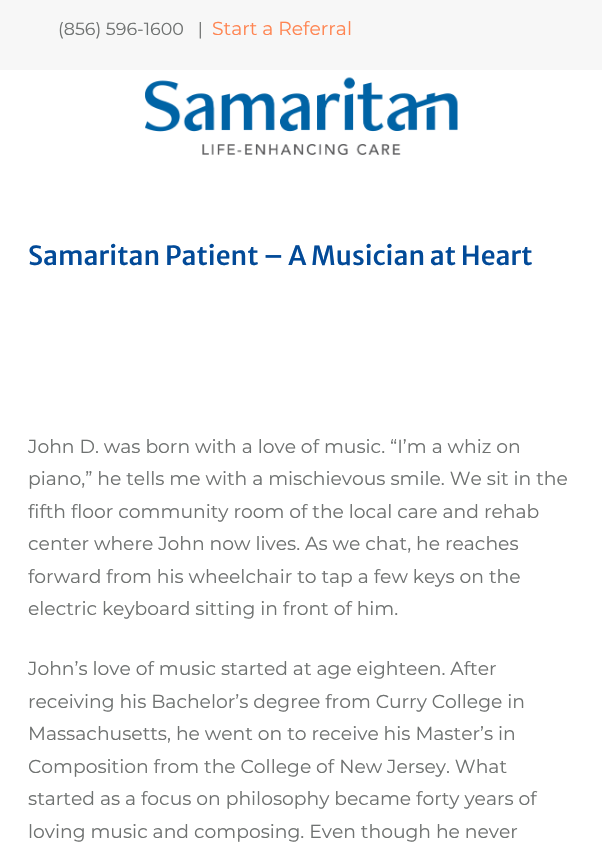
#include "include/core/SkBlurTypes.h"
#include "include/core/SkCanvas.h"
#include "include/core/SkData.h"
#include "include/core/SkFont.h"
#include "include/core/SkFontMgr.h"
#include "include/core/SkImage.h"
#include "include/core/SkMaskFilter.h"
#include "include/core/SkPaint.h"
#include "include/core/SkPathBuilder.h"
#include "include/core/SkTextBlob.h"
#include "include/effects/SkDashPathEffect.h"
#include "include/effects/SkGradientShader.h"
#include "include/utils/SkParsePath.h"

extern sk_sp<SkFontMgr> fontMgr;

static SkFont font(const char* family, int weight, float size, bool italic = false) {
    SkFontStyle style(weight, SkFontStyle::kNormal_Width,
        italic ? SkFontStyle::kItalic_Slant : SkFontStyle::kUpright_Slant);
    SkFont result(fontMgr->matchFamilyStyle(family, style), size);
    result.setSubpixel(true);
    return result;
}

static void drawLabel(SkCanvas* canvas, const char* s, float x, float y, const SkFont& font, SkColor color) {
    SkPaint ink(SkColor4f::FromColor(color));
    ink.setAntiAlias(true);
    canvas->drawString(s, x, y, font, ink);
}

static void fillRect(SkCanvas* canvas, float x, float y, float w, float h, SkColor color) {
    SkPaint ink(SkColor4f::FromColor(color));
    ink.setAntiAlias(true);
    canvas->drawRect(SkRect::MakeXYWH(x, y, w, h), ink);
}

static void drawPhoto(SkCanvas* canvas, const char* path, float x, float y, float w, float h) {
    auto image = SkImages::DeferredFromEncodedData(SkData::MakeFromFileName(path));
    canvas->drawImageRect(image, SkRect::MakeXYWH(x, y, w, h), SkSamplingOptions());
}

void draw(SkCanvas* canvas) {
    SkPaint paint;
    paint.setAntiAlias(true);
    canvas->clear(0xFFFFFFFF);
    fillRect(canvas, 0, 0, 602, 70, 0xFFF7F7F7);
    SkFont font1 = font("Montserrat", 400, 17.5f);
    drawLabel(canvas, "(856) 596-1600   |", 58, 35, font1, 0xFF6F7271);
    SkFont font2 = font("Montserrat", 400, 18.75f);
    drawLabel(canvas, "Start a Referral", 212, 35, font2, 0xFFFF8552);
    drawPhoto(canvas, "assets/img1.png", 145, 77, 313, 78);
    SkFont font3 = font("Merriweather Sans", 500, 26.25f);
    drawLabel(canvas, "Samaritan Patient – A Musician at Heart", 28, 265, font3, 0xFF024A98);
    drawLabel(canvas, "John D. was born with a love of music. “I’m a whiz on", 28, 453, font2, 0xFF6F7271);
    drawLabel(canvas, "piano,” he tells me with a mischievous smile. We sit in the", 28, 485, font2, 0xFF6F7271);
    drawLabel(canvas, "fifth floor community room of the local care and rehab", 28, 518, font2, 0xFF6F7271);
    drawLabel(canvas, "center where John now lives. As we chat, he reaches", 28, 550, font2, 0xFF6F7271);
    drawLabel(canvas, "forward from his wheelchair to tap a few keys on the", 28, 583, font2, 0xFF6F7271);
    drawLabel(canvas, "electric keyboard sitting in front of him.", 28, 615, font2, 0xFF6F7271);
    drawLabel(canvas, "John’s love of music started at age eighteen. After", 28, 675, font2, 0xFF6F7271);
    drawLabel(canvas, "receiving his Bachelor’s degree from Curry College in", 28, 708, font2, 0xFF6F7271);
    drawLabel(canvas, "Massachusetts, he went on to receive his Master’s in", 28, 740, font2, 0xFF6F7271);
    drawLabel(canvas, "Composition from the College of New Jersey. What", 28, 773, font2, 0xFF6F7271);
    drawLabel(canvas, "started as a focus on philosophy became forty years of", 28, 805, font2, 0xFF6F7271);
    drawLabel(canvas, "loving music and composing. Even though he never", 28, 838, font2, 0xFF6F7271);
}
